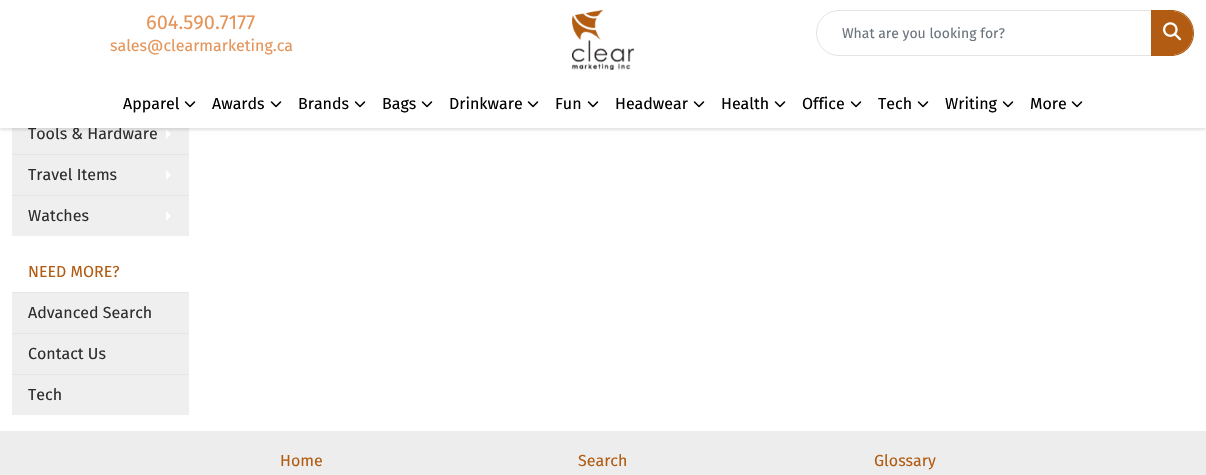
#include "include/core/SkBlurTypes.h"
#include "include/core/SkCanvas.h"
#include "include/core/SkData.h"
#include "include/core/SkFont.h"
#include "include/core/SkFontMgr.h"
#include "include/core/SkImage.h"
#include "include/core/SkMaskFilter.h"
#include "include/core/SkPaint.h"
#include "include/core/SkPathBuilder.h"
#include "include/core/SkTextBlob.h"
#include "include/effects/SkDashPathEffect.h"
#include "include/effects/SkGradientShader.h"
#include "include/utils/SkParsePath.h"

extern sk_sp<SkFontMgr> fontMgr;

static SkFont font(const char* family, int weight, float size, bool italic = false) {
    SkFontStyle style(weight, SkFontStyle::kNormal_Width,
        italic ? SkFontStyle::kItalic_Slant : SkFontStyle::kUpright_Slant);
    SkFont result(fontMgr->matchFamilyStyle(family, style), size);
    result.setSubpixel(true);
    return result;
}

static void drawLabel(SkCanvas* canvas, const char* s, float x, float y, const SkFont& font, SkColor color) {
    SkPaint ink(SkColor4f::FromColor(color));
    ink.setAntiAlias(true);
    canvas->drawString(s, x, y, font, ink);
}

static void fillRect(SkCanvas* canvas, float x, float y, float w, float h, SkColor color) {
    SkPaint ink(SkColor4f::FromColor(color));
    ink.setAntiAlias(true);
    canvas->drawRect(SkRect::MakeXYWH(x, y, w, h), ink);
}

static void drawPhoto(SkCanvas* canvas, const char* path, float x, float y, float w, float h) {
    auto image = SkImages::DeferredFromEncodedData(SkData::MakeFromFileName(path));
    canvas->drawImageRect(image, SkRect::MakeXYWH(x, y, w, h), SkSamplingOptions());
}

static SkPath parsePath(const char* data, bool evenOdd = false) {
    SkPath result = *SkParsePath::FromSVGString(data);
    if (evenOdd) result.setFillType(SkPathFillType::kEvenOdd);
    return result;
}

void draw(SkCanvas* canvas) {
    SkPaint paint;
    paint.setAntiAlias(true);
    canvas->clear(0xFFFFFFFF);
    fillRect(canvas, 12, 128, 177, 26, 0xFFEFEFEF);
    paint.setColor(0xFFFFFFFF);
    canvas->drawPath(parsePath("M166 139V129L171 134Z"), paint);
    paint.setColor(0x1A000000);
    paint.setMaskFilter(SkMaskFilter::MakeBlur(kNormal_SkBlurStyle, 2.5f));
    canvas->drawRect(SkRect::MakeXYWH(0, 0, 1206, 128), paint);
    paint.setMaskFilter(nullptr);
    SkFont font1 = font("Fira Sans", 400, 16);
    drawLabel(canvas, "Tools & Hardware", 28, 139, font1, 0xFF2E2E2E);
    fillRect(canvas, 0, 0, 1206, 128, 0xFFFFFFFF);
    SkFont font2 = font("Fira Sans", 400, 20);
    drawLabel(canvas, "604.590.7177", 146, 29, font2, 0xFFE5955A);
    drawLabel(canvas, "sales@clearmarketing.ca", 110, 51, font1, 0xFFE5955A);
    drawPhoto(canvas, "assets/img1.png", 572, 10, 62, 60);
    paint.setStroke(true);
    paint.setStrokeWidth(1);
    paint.setColor(0xFFE4E4E4);
    canvas->drawPath(parsePath("M839 10.5H1151.5V55.5H839C826.5 55.5 816.5 45.5 816.5 33C816.5 20.5 826.5 10.5 839 10.5Z"), paint);
    SkFont font3 = font("Fira Sans", 400, 14);
    drawLabel(canvas, "What are you looking for?", 842, 38, font3, 0xFF6C757D);
    paint.setStroke(false);
    paint.setColor(0xFFB15C12);
    canvas->drawPath(parsePath("M1151 11H1171C1183 11 1193 21 1193 33C1193 45 1183 55 1171 55H1151Z"), paint);
    canvas->drawPath(parsePath("M1151 10H1171C1184 10 1194 20 1194 33C1194 46 1184 56 1171 56H1151ZM1151 11H1171C1183 11 1193 21 1193 33C1193 45 1183 55 1171 55H1151Z", true), paint);
    drawPhoto(canvas, "assets/img2.png", 1163, 22, 18, 19);
    canvas->save();
    canvas->clipRect(SkRect::MakeXYWH(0, 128, 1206, 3));
    paint.setColor(0x12000000);
    paint.setMaskFilter(SkMaskFilter::MakeBlur(kNormal_SkBlurStyle, 2));
    canvas->drawRect(SkRect::MakeXYWH(0, 82, 1206, 48), paint);
    paint.setMaskFilter(nullptr);
    canvas->restore();
    drawLabel(canvas, "Apparel", 123, 109, font1, 0xFF000000);
    drawPhoto(canvas, "assets/img3.png", 184, 101, 12, 7);
    drawLabel(canvas, "Awards", 212, 109, font1, 0xFF000000);
    drawPhoto(canvas, "assets/img3.png", 270, 101, 12, 7);
    drawLabel(canvas, "Brands", 298, 109, font1, 0xFF000000);
    drawPhoto(canvas, "assets/img3.png", 354, 101, 12, 7);
    drawLabel(canvas, "Bags", 382, 109, font1, 0xFF000000);
    drawPhoto(canvas, "assets/img3.png", 421, 101, 12, 7);
    drawLabel(canvas, "Drinkware", 449, 109, font1, 0xFF000000);
    drawPhoto(canvas, "assets/img3.png", 527, 101, 12, 7);
    drawLabel(canvas, "Fun", 555, 109, font1, 0xFF000000);
    drawPhoto(canvas, "assets/img3.png", 587, 101, 12, 7);
    drawLabel(canvas, "Headwear", 615, 109, font1, 0xFF000000);
    drawPhoto(canvas, "assets/img3.png", 693, 101, 12, 7);
    drawLabel(canvas, "Health", 721, 109, font1, 0xFF000000);
    drawPhoto(canvas, "assets/img3.png", 774, 101, 12, 7);
    drawLabel(canvas, "Office", 802, 109, font1, 0xFF000000);
    drawPhoto(canvas, "assets/img3.png", 850, 101, 12, 7);
    drawLabel(canvas, "Tech", 878, 109, font1, 0xFF000000);
    drawPhoto(canvas, "assets/img3.png", 917, 101, 12, 7);
    drawLabel(canvas, "Writing", 945, 109, font1, 0xFF000000);
    drawPhoto(canvas, "assets/img3.png", 1002, 101, 12, 7);
    drawLabel(canvas, "More", 1030, 109, font1, 0xFF000000);
    drawPhoto(canvas, "assets/img3.png", 1071, 101, 12, 7);
    fillRect(canvas, 12, 155, 177, 40, 0xFFEFEFEF);
    fillRect(canvas, 12, 154, 177, 1, 0xFFE5E5E5);
    drawLabel(canvas, "Travel Items", 28, 180, font1, 0xFF2E2E2E);
    paint.setColor(0xFFFFFFFF);
    canvas->drawPath(parsePath("M166 180V170L171 175Z"), paint);
    fillRect(canvas, 12, 196, 177, 40, 0xFFEFEFEF);
    fillRect(canvas, 12, 195, 177, 1, 0xFFE5E5E5);
    drawLabel(canvas, "Watches", 28, 221, font1, 0xFF2E2E2E);
    canvas->drawPath(parsePath("M166 221V211L171 216Z"), paint);
    drawLabel(canvas, "NEED MORE?", 28, 277, font1, 0xFFB15C12);
    fillRect(canvas, 12, 293, 177, 40, 0xFFEFEFEF);
    fillRect(canvas, 12, 292, 177, 1, 0xFFE5E5E5);
    drawLabel(canvas, "Advanced Search", 28, 318, font1, 0xFF2E2E2E);
    fillRect(canvas, 12, 334, 177, 40, 0xFFEFEFEF);
    fillRect(canvas, 12, 333, 177, 1, 0xFFE5E5E5);
    drawLabel(canvas, "Contact Us", 28, 359, font1, 0xFF2E2E2E);
    fillRect(canvas, 12, 375, 177, 40, 0xFFEFEFEF);
    fillRect(canvas, 12, 374, 177, 1, 0xFFE5E5E5);
    drawLabel(canvas, "Tech", 28, 400, font1, 0xFF2E2E2E);
    fillRect(canvas, 0, 431, 1206, 44, 0xFFEDEDED);
    drawLabel(canvas, "Home", 280, 466, font1, 0xFFB15C12);
    drawLabel(canvas, "Search", 578, 466, font1, 0xFFB15C12);
    drawLabel(canvas, "Glossary", 874, 466, font1, 0xFFB15C12);
}
